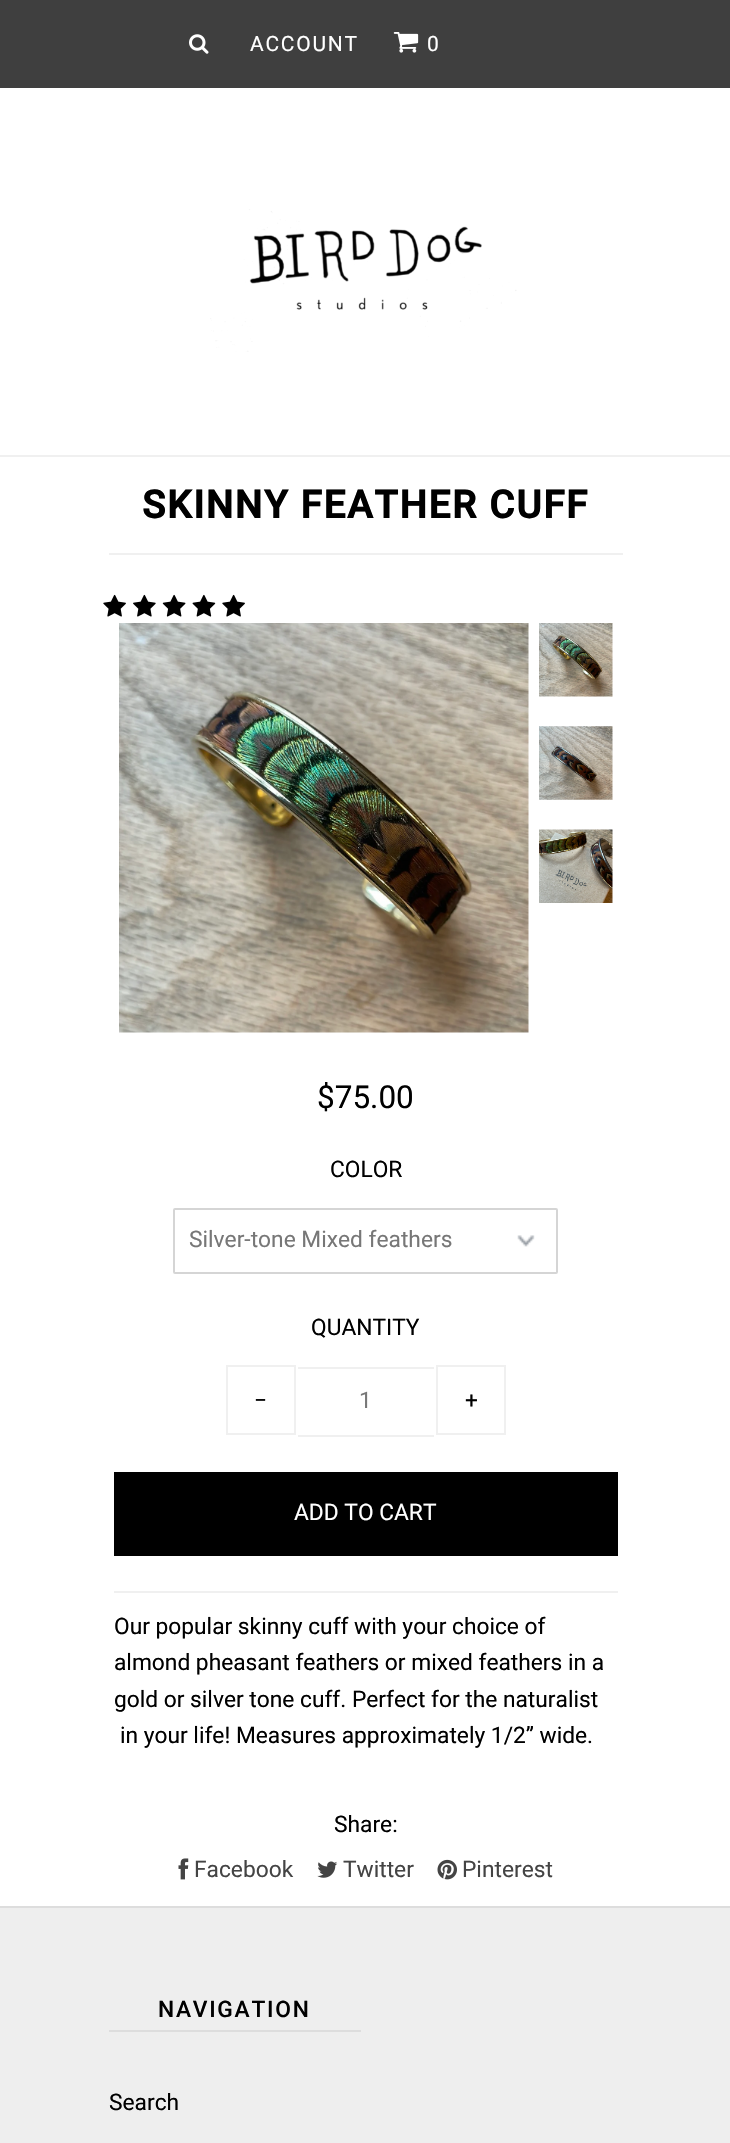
#include "include/core/SkBlurTypes.h"
#include "include/core/SkCanvas.h"
#include "include/core/SkData.h"
#include "include/core/SkFont.h"
#include "include/core/SkFontMgr.h"
#include "include/core/SkImage.h"
#include "include/core/SkMaskFilter.h"
#include "include/core/SkPaint.h"
#include "include/core/SkPathBuilder.h"
#include "include/core/SkTextBlob.h"
#include "include/effects/SkDashPathEffect.h"
#include "include/effects/SkGradientShader.h"
#include "include/utils/SkParsePath.h"

extern sk_sp<SkFontMgr> fontMgr;

static SkFont font(const char* family, int weight, float size, bool italic = false) {
    SkFontStyle style(weight, SkFontStyle::kNormal_Width,
        italic ? SkFontStyle::kItalic_Slant : SkFontStyle::kUpright_Slant);
    SkFont result(fontMgr->matchFamilyStyle(family, style), size);
    result.setSubpixel(true);
    return result;
}

static void drawLabel(SkCanvas* canvas, const char* s, float x, float y, const SkFont& font, SkColor color) {
    SkPaint ink(SkColor4f::FromColor(color));
    ink.setAntiAlias(true);
    canvas->drawString(s, x, y, font, ink);
}

static void drawTracked(SkCanvas* canvas, const char* s, float x, float y, const SkFont& font, const SkPaint& ink, float letter, float word) {
    std::vector<SkGlyphID> glyphs(font.countText(s, strlen(s), SkTextEncoding::kUTF8));
    std::vector<float> xs(glyphs.size());
    font.textToGlyphs(s, strlen(s), SkTextEncoding::kUTF8, glyphs);
    font.getXPos(glyphs, xs, x);
    float extra = 0;
    for (size_t i = 0; i < glyphs.size(); i++) {
        xs[i] += extra;
        extra += letter + word * (glyphs[i] == font.unicharToGlyph(' '));
    }
    canvas->drawTextBlob(SkTextBlob::MakeFromPosHGlyphs(glyphs, xs, y, font), 0, 0, ink);
}

static void fillRect(SkCanvas* canvas, float x, float y, float w, float h, SkColor color) {
    SkPaint ink(SkColor4f::FromColor(color));
    ink.setAntiAlias(true);
    canvas->drawRect(SkRect::MakeXYWH(x, y, w, h), ink);
}

static void drawPhoto(SkCanvas* canvas, const char* path, float x, float y, float w, float h) {
    auto image = SkImages::DeferredFromEncodedData(SkData::MakeFromFileName(path));
    canvas->drawImageRect(image, SkRect::MakeXYWH(x, y, w, h), SkSamplingOptions());
}

void draw(SkCanvas* canvas) {
    SkPaint paint;
    paint.setAntiAlias(true);
    canvas->clear(0xFFFFFFFF);
    fillRect(canvas, 0, 455, 730, 2, 0xFFF0F0F0);
    fillRect(canvas, 0, 0, 730, 88, 0xFF3F3F3F);
    drawPhoto(canvas, "assets/img1.png", 189, 34, 20, 20);
    SkFont font1 = font("Roboto", 400, 21);
    paint.setColor(0xFFFFFFFF);
    drawTracked(canvas, "ACCOUNT", 250, 51, font1, paint, 1.75f, 0);
    drawPhoto(canvas, "assets/img2.png", 393, 32, 26, 21);
    drawTracked(canvas, "0", 427, 51, font1, paint, 1.75f, 0);
    drawPhoto(canvas, "assets/img3.png", 210, 209, 307, 143);
    fillRect(canvas, 109, 553, 514, 2, 0xFFF0F0F0);
    SkFont font2 = font("Roboto", 700, 38.5f);
    paint.setColor(0xFF000000);
    drawTracked(canvas, "SKINNY FEATHER CUFF", 142, 518, font2, paint, 1.75f, 0);
    drawPhoto(canvas, "assets/img4.png", 103, 594, 23, 23);
    drawPhoto(canvas, "assets/img5.png", 133, 594, 23, 23);
    drawPhoto(canvas, "assets/img6.png", 162, 594, 24, 23);
    drawPhoto(canvas, "assets/img7.png", 192, 594, 24, 23);
    drawPhoto(canvas, "assets/img4.png", 222, 594, 23, 23);
    drawPhoto(canvas, "assets/img8.png", 119, 623, 410, 410);
    drawPhoto(canvas, "assets/img9.png", 539, 623, 74, 74);
    drawPhoto(canvas, "assets/img10.png", 539, 726, 74, 74);
    drawPhoto(canvas, "assets/img11.png", 539, 829, 74, 74);
    SkFont font3 = font("Roboto", 400, 31.5f);
    drawLabel(canvas, "$75.00", 317, 1108, font3, 0xFF000000);
    fillRect(canvas, 114, 1591, 504, 2, 0xFFF0F0F0);
    SkFont font4 = font("Roboto", 400, 22.75f);
    drawLabel(canvas, "COLOR", 330, 1177, font4, 0xFF000000);
    drawPhoto(canvas, "assets/img12.png", 517, 1235, 18, 12);
    paint.setStroke(true);
    paint.setStrokeWidth(2);
    paint.setColor(0xFFD5D5D5);
    canvas->drawRoundRect(SkRect::MakeXYWH(174, 1209, 383, 64), 1, 1, paint);
    drawLabel(canvas, "Silver-tone Mixed feathers", 189, 1247, font4, 0xFF777777);
    drawLabel(canvas, "QUANTITY", 311, 1335, font4, 0xFF000000);
    paint.setColor(0xFFF0F0F0);
    canvas->drawRect(SkRect::MakeXYWH(227, 1366, 68, 68), paint);
    drawLabel(canvas, "−", 254, 1408, font4, 0xFF000000);
    fillRect(canvas, 298, 1367, 136, 2, 0xFFF0F0F0);
    fillRect(canvas, 298, 1435, 136, 2, 0xFFF0F0F0);
    drawLabel(canvas, "1", 359, 1408, font4, 0xFF777777);
    canvas->drawRect(SkRect::MakeXYWH(437, 1366, 68, 68), paint);
    drawLabel(canvas, "+", 465, 1408, font4, 0xFF000000);
    fillRect(canvas, 114, 1472, 504, 84, 0xFF000000);
    drawLabel(canvas, "ADD TO CART", 294, 1520, font4, 0xFFFFFFFF);
    drawLabel(canvas, "Our popular skinny cuff with your choice of", 114, 1634, font4, 0xFF000000);
    drawLabel(canvas, "almond pheasant feathers or mixed feathers in a", 114, 1670, font4, 0xFF000000);
    drawLabel(canvas, "gold or silver tone cuff. Perfect for the naturalist", 114, 1707, font4, 0xFF000000);
    drawLabel(canvas, "in your life! Measures approximately 1/2” wide.", 120, 1743, font4, 0xFF000000);
    drawLabel(canvas, "Share:", 334, 1832, font4, 0xFF000000);
    drawPhoto(canvas, "assets/img13.png", 178, 1858, 11, 22);
    drawLabel(canvas, "Facebook", 194, 1877, font4, 0xFF444444);
    drawPhoto(canvas, "assets/img14.png", 317, 1861, 21, 17);
    drawLabel(canvas, "Twitter", 343, 1877, font4, 0xFF444444);
    drawPhoto(canvas, "assets/img15.png", 437, 1859, 20, 21);
    drawLabel(canvas, "Pinterest", 462, 1877, font4, 0xFF444444);
    fillRect(canvas, 0, 1908, 730, 235, 0xFFEEEEEE);
    fillRect(canvas, 0, 1906, 730, 2, 0xFFDDDDDD);
    fillRect(canvas, 109, 2030, 252, 2, 0xFFDDDDDD);
    SkFont font5 = font("Roboto", 500, 22.75f);
    paint.setStroke(false);
    paint.setColor(0xFF000000);
    drawTracked(canvas, "NAVIGATION", 158, 2017, font5, paint, 1.75f, 0);
    drawLabel(canvas, "Search", 109, 2110, font4, 0xFF000000);
}
